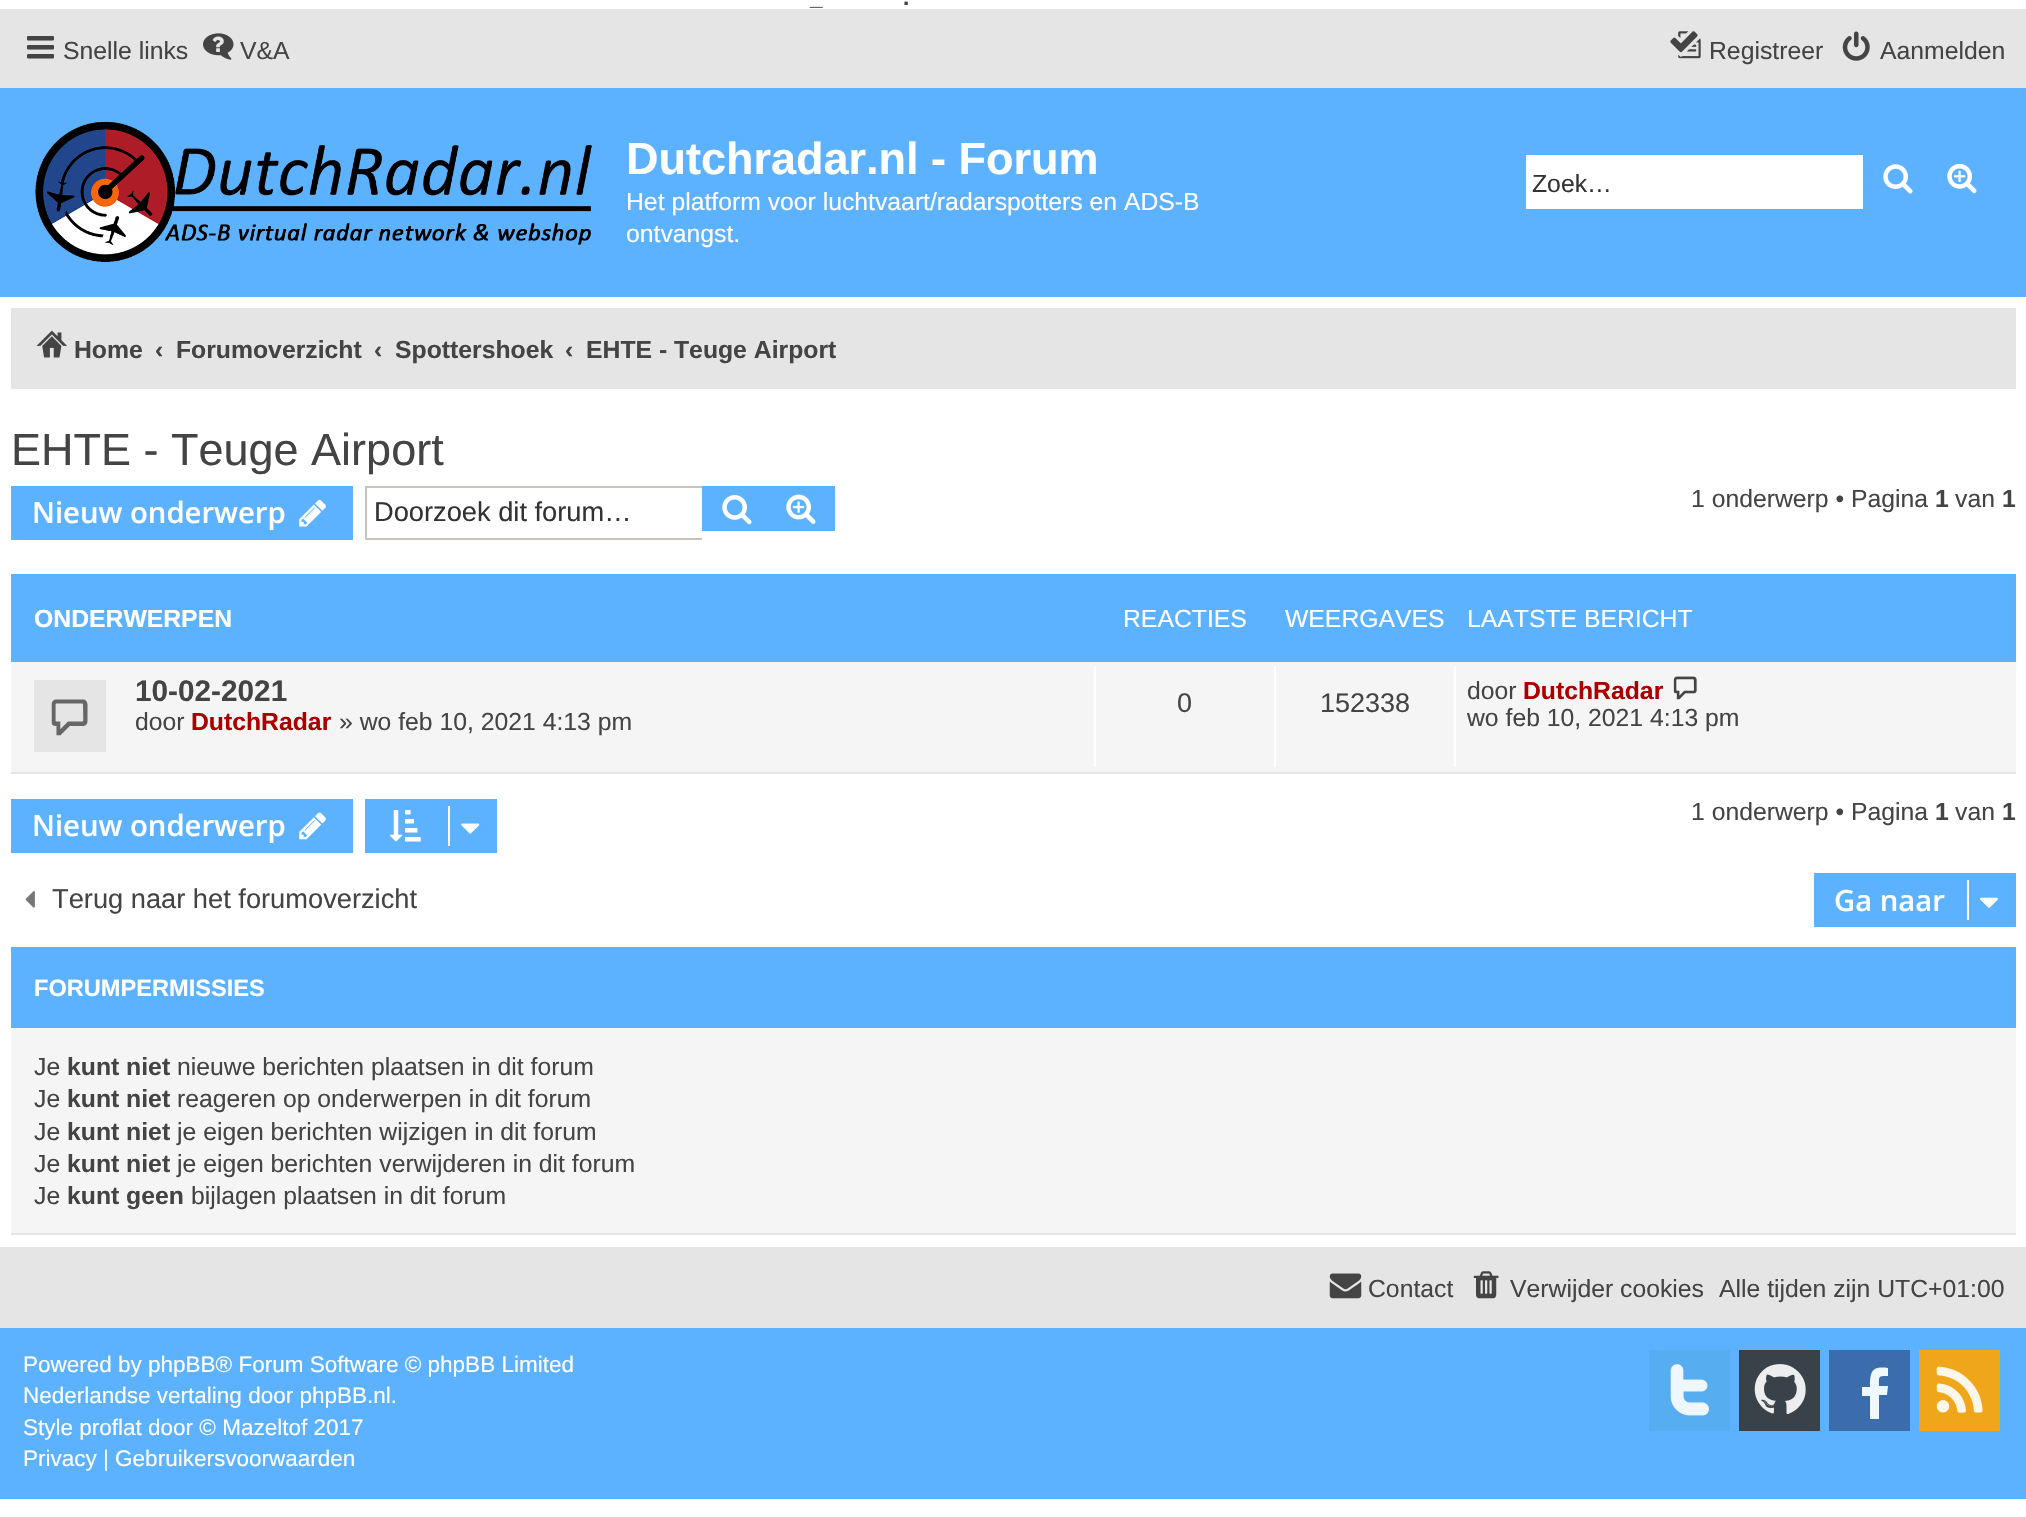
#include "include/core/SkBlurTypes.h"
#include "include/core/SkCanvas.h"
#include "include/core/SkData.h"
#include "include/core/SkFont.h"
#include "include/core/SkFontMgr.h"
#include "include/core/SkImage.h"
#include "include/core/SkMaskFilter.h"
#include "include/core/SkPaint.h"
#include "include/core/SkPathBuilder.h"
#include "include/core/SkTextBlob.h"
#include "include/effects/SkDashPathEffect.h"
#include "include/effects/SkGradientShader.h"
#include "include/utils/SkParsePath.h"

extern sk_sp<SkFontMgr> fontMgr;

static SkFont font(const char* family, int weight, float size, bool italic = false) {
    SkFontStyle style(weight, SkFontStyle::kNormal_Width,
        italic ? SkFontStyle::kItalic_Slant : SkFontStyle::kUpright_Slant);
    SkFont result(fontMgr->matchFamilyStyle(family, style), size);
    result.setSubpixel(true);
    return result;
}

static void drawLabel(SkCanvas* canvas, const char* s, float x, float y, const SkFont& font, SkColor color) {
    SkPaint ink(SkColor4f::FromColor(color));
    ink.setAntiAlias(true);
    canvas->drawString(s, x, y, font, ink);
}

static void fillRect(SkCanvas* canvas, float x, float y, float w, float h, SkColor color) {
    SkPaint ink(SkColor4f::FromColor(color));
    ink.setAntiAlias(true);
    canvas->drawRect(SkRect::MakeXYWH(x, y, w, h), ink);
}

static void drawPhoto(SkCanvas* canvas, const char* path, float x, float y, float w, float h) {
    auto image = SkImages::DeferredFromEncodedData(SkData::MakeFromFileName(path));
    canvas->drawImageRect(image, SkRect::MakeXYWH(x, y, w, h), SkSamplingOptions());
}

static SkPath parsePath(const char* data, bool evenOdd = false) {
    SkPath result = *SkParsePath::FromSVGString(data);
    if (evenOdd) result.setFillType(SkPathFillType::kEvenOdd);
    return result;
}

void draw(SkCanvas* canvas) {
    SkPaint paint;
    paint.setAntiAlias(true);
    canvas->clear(0xFFFFFFFF);
    SkFont font1 = font("Liberation Sans", 700, 22.5f);
    drawLabel(canvas, ".", 903, 5, font1, 0xFF444444);
    drawLabel(canvas, "_", 810, 5, font1, 0xFF444444);
    fillRect(canvas, 0, 9, 2026, 79, 0xFFE5E5E5);
    drawPhoto(canvas, "assets/img1.png", 27, 36, 27, 23);
    SkFont font2 = font("Liberation Sans", 400, 24.75f);
    drawLabel(canvas, "Snelle links", 63, 59, font2, 0xFF444444);
    drawPhoto(canvas, "assets/img2.png", 203, 33, 31, 27);
    drawLabel(canvas, "V&A", 240, 59, font2, 0xFF444444);
    drawPhoto(canvas, "assets/img3.png", 1670, 31, 31, 28);
    drawLabel(canvas, "Registreer", 1709, 59, font2, 0xFF444444);
    drawPhoto(canvas, "assets/img4.png", 1842, 31, 28, 30);
    drawLabel(canvas, "Aanmelden", 1880, 59, font2, 0xFF444444);
    fillRect(canvas, 0, 88, 2026, 209, 0xFF5DB2FF);
    drawPhoto(canvas, "assets/img5.png", 35, 121, 557, 142);
    SkFont font3 = font("Liberation Sans", 700, 45);
    drawLabel(canvas, "Dutchradar.nl - Forum", 626, 174, font3, 0xFFFFFFFF);
    drawLabel(canvas, "Het platform voor luchtvaart/radarspotters en ADS-B", 626, 210, font2, 0xFFFFFFFF);
    drawLabel(canvas, "ontvangst.", 626, 242, font2, 0xFFFFFFFF);
    fillRect(canvas, 1526, 155, 337, 54, 0xFFFFFFFF);
    drawLabel(canvas, "Zoek…", 1532, 192, font2, 0xFF333333);
    drawPhoto(canvas, "assets/img6.png", 1883, 164, 30, 30);
    drawPhoto(canvas, "assets/img7.png", 1947, 163, 30, 31);
    fillRect(canvas, 11, 308, 2005, 81, 0xFFE5E5E5);
    drawPhoto(canvas, "assets/img8.png", 36, 330, 31, 28);
    SkFont font4 = font("Liberation Sans", 700, 24.75f);
    drawLabel(canvas, "Home", 74, 358, font4, 0xFF444444);
    drawLabel(canvas, "‹", 155, 358, font4, 0xFF444444);
    drawLabel(canvas, "Forumoverzicht", 176, 358, font4, 0xFF444444);
    drawLabel(canvas, "‹", 374, 358, font4, 0xFF444444);
    drawLabel(canvas, "Spottershoek", 395, 358, font4, 0xFF444444);
    drawLabel(canvas, "‹", 565, 358, font4, 0xFF444444);
    drawLabel(canvas, "EHTE - Teuge Airport", 586, 358, font4, 0xFF444444);
    SkFont font5 = font("Liberation Sans", 400, 45);
    drawLabel(canvas, "EHTE - Teuge Airport", 11, 465, font5, 0xFF444444);
    fillRect(canvas, 11, 486, 342, 54, 0xFF5DB2FF);
    SkFont font6 = font("Open Sans", 600, 29.25f);
    drawLabel(canvas, "Nieuw onderwerp", 32, 523, font6, 0xFFFFFFFF);
    drawPhoto(canvas, "assets/img9.png", 299, 499, 27, 28);
    fillRect(canvas, 365, 486, 337, 2, 0xFFC7C3BF);
    fillRect(canvas, 365, 538, 337, 2, 0xFFC7C3BF);
    fillRect(canvas, 365, 486, 2, 54, 0xFFC7C3BF);
    SkFont font7 = font("Liberation Sans", 400, 27.25f);
    drawLabel(canvas, "Doorzoek dit forum…", 374, 521, font7, 0xFF333333);
    fillRect(canvas, 702, 486, 68, 45, 0xFF5DB2FF);
    drawPhoto(canvas, "assets/img10.png", 722, 495, 30, 30);
    fillRect(canvas, 770, 488, 63, 41, 0xFF5DB2FF);
    fillRect(canvas, 770, 486, 65, 2, 0xFF5DB2FF);
    fillRect(canvas, 833, 486, 2, 45, 0xFF5DB2FF);
    fillRect(canvas, 770, 529, 65, 2, 0xFF5DB2FF);
    drawPhoto(canvas, "assets/img11.png", 786, 494, 30, 30);
    drawLabel(canvas, "1 onderwerp • Pagina", 1691, 507, font2, 0xFF444444);
    drawLabel(canvas, "1", 1935, 507, font4, 0xFF444444);
    drawLabel(canvas, "van", 1955, 507, font2, 0xFF444444);
    drawLabel(canvas, "1", 2002, 507, font4, 0xFF444444);
    fillRect(canvas, 11, 574, 2005, 88, 0xFF5DB2FF);
    drawLabel(canvas, "ONDERWERPEN", 34, 627, font4, 0xFFFFFFFF);
    drawLabel(canvas, "REACTIES", 1123, 627, font2, 0xFFFFFFFF);
    drawLabel(canvas, "WEERGAVES", 1285, 627, font2, 0xFFFFFFFF);
    drawLabel(canvas, "LAATSTE BERICHT", 1467, 627, font2, 0xFFFFFFFF);
    fillRect(canvas, 11, 662, 2005, 110, 0xFFF5F5F5);
    fillRect(canvas, 11, 772, 2005, 2, 0xFFE5E5E5);
    fillRect(canvas, 34, 680, 72, 72, 0xFFE5E5E5);
    drawPhoto(canvas, "assets/img12.png", 51, 699, 37, 37);
    SkFont font8 = font("Liberation Sans", 700, 29.75f);
    drawLabel(canvas, "10-02-2021", 135, 701, font8, 0xFF444444);
    drawLabel(canvas, "door", 135, 730, font2, 0xFF444444);
    drawLabel(canvas, "DutchRadar", 191, 730, font4, 0xFFAA0000);
    drawLabel(canvas, "» wo feb 10, 2021 4:13 pm", 339, 730, font2, 0xFF444444);
    fillRect(canvas, 1094, 666, 2, 101, 0xFFFFFFFF);
    SkFont font9 = font("Liberation Sans", 400, 27);
    drawLabel(canvas, "0", 1177, 712, font9, 0xFF444444);
    fillRect(canvas, 1274, 666, 2, 101, 0xFFFFFFFF);
    drawLabel(canvas, "152338", 1320, 712, font9, 0xFF444444);
    fillRect(canvas, 1454, 666, 2, 101, 0xFFFFFFFF);
    drawLabel(canvas, "door", 1467, 699, font2, 0xFF444444);
    drawLabel(canvas, "DutchRadar", 1523, 699, font4, 0xFFAA0000);
    drawPhoto(canvas, "assets/img13.png", 1673, 676, 24, 24);
    drawLabel(canvas, "wo feb 10, 2021 4:13 pm", 1467, 726, font2, 0xFF444444);
    fillRect(canvas, 11, 799, 342, 54, 0xFF5DB2FF);
    drawLabel(canvas, "Nieuw onderwerp", 32, 836, font6, 0xFFFFFFFF);
    drawPhoto(canvas, "assets/img14.png", 299, 812, 27, 28);
    fillRect(canvas, 365, 799, 132, 54, 0xFF5DB2FF);
    drawPhoto(canvas, "assets/img15.png", 389, 810, 32, 32);
    fillRect(canvas, 448, 806, 2, 40, 0xFFFFFFFF);
    drawPhoto(canvas, "assets/img16.png", 461, 823, 19, 11);
    drawLabel(canvas, "1 onderwerp • Pagina", 1691, 820, font2, 0xFF444444);
    drawLabel(canvas, "1", 1935, 820, font4, 0xFF444444);
    drawLabel(canvas, "van", 1955, 820, font2, 0xFF444444);
    drawLabel(canvas, "1", 2002, 820, font4, 0xFF444444);
    drawPhoto(canvas, "assets/img17.png", 25, 891, 10, 17);
    drawLabel(canvas, "Terug naar het forumoverzicht", 52, 908, font7, 0xFF444444);
    fillRect(canvas, 1814, 873, 202, 54, 0xFF5DB2FF);
    drawLabel(canvas, "Ga naar", 1834, 911, font6, 0xFFFFFFFF);
    fillRect(canvas, 1967, 880, 2, 40, 0xFFFFFFFF);
    drawPhoto(canvas, "assets/img18.png", 1980, 897, 18, 11);
    fillRect(canvas, 11, 947, 2005, 81, 0xFF5DB2FF);
    SkFont font10 = font("Liberation Sans", 700, 23.6f);
    drawLabel(canvas, "FORUMPERMISSIES", 34, 996, font10, 0xFFFFFFFF);
    fillRect(canvas, 11, 1028, 2005, 205, 0xFFF5F5F5);
    fillRect(canvas, 11, 1233, 2005, 2, 0xFFE5E5E5);
    drawLabel(canvas, "Je", 34, 1075, font2, 0xFF444444);
    drawLabel(canvas, "kunt niet", 67, 1075, font4, 0xFF444444);
    drawLabel(canvas, "nieuwe berichten plaatsen in dit forum", 177, 1075, font2, 0xFF444444);
    drawLabel(canvas, "Je", 34, 1107, font2, 0xFF444444);
    drawLabel(canvas, "kunt niet", 67, 1107, font4, 0xFF444444);
    drawLabel(canvas, "reageren op onderwerpen in dit forum", 177, 1107, font2, 0xFF444444);
    drawLabel(canvas, "Je", 34, 1140, font2, 0xFF444444);
    drawLabel(canvas, "kunt niet", 67, 1140, font4, 0xFF444444);
    drawLabel(canvas, "je eigen berichten wijzigen in dit forum", 177, 1140, font2, 0xFF444444);
    drawLabel(canvas, "Je", 34, 1172, font2, 0xFF444444);
    drawLabel(canvas, "kunt niet", 67, 1172, font4, 0xFF444444);
    drawLabel(canvas, "je eigen berichten verwijderen in dit forum", 177, 1172, font2, 0xFF444444);
    drawLabel(canvas, "Je", 34, 1204, font2, 0xFF444444);
    drawLabel(canvas, "kunt geen", 67, 1204, font4, 0xFF444444);
    drawLabel(canvas, "bijlagen plaatsen in dit forum", 191, 1204, font2, 0xFF444444);
    fillRect(canvas, 0, 1247, 2026, 81, 0xFFE5E5E5);
    drawPhoto(canvas, "assets/img19.png", 1329, 1273, 33, 26);
    drawLabel(canvas, "Contact", 1368, 1297, font2, 0xFF444444);
    drawPhoto(canvas, "assets/img20.png", 1473, 1271, 26, 28);
    drawLabel(canvas, "Verwijder cookies", 1510, 1297, font2, 0xFF444444);
    drawLabel(canvas, "Alle tijden zijn UTC+01:00", 1719, 1297, font2, 0xFF444444);
    fillRect(canvas, 0, 1328, 2026, 171, 0xFF5DB2FF);
    SkFont font11 = font("Liberation Sans", 400, 22.5f);
    drawLabel(canvas, "Powered by phpBB® Forum Software © phpBB Limited", 23, 1372, font11, 0xFFFFFFFF);
    drawLabel(canvas, "Nederlandse vertaling door phpBB.nl.", 23, 1403, font11, 0xFFFFFFFF);
    drawLabel(canvas, "Style proflat door © Mazeltof 2017", 23, 1435, font11, 0xFFFFFFFF);
    drawLabel(canvas, "Privacy | Gebruikersvoorwaarden", 23, 1466, font11, 0xFFFFFFFF);
    fillRect(canvas, 1649, 1350, 81, 81, 0xFF56ADF0);
    drawPhoto(canvas, "assets/img21.png", 1670, 1364, 39, 52);
    fillRect(canvas, 1739, 1350, 81, 81, 0xFF394249);
    drawPhoto(canvas, "assets/img22.png", 1754, 1364, 52, 50);
    fillRect(canvas, 1829, 1350, 81, 81, 0xFF3B6DAC);
    paint.setColor(0xFFEFF7FF);
    canvas->drawPath(parsePath("M1888 1368V1376C1878 1376 1879 1376 1879 1386H1888L1887 1395H1879V1419H1870V1396H1862V1387H1870C1870 1371 1872 1366 1888 1368Z"), paint);
    fillRect(canvas, 1919, 1350, 81, 81, 0xFFEFA61A);
    drawPhoto(canvas, "assets/img23.png", 1936, 1366, 47, 47);
}
